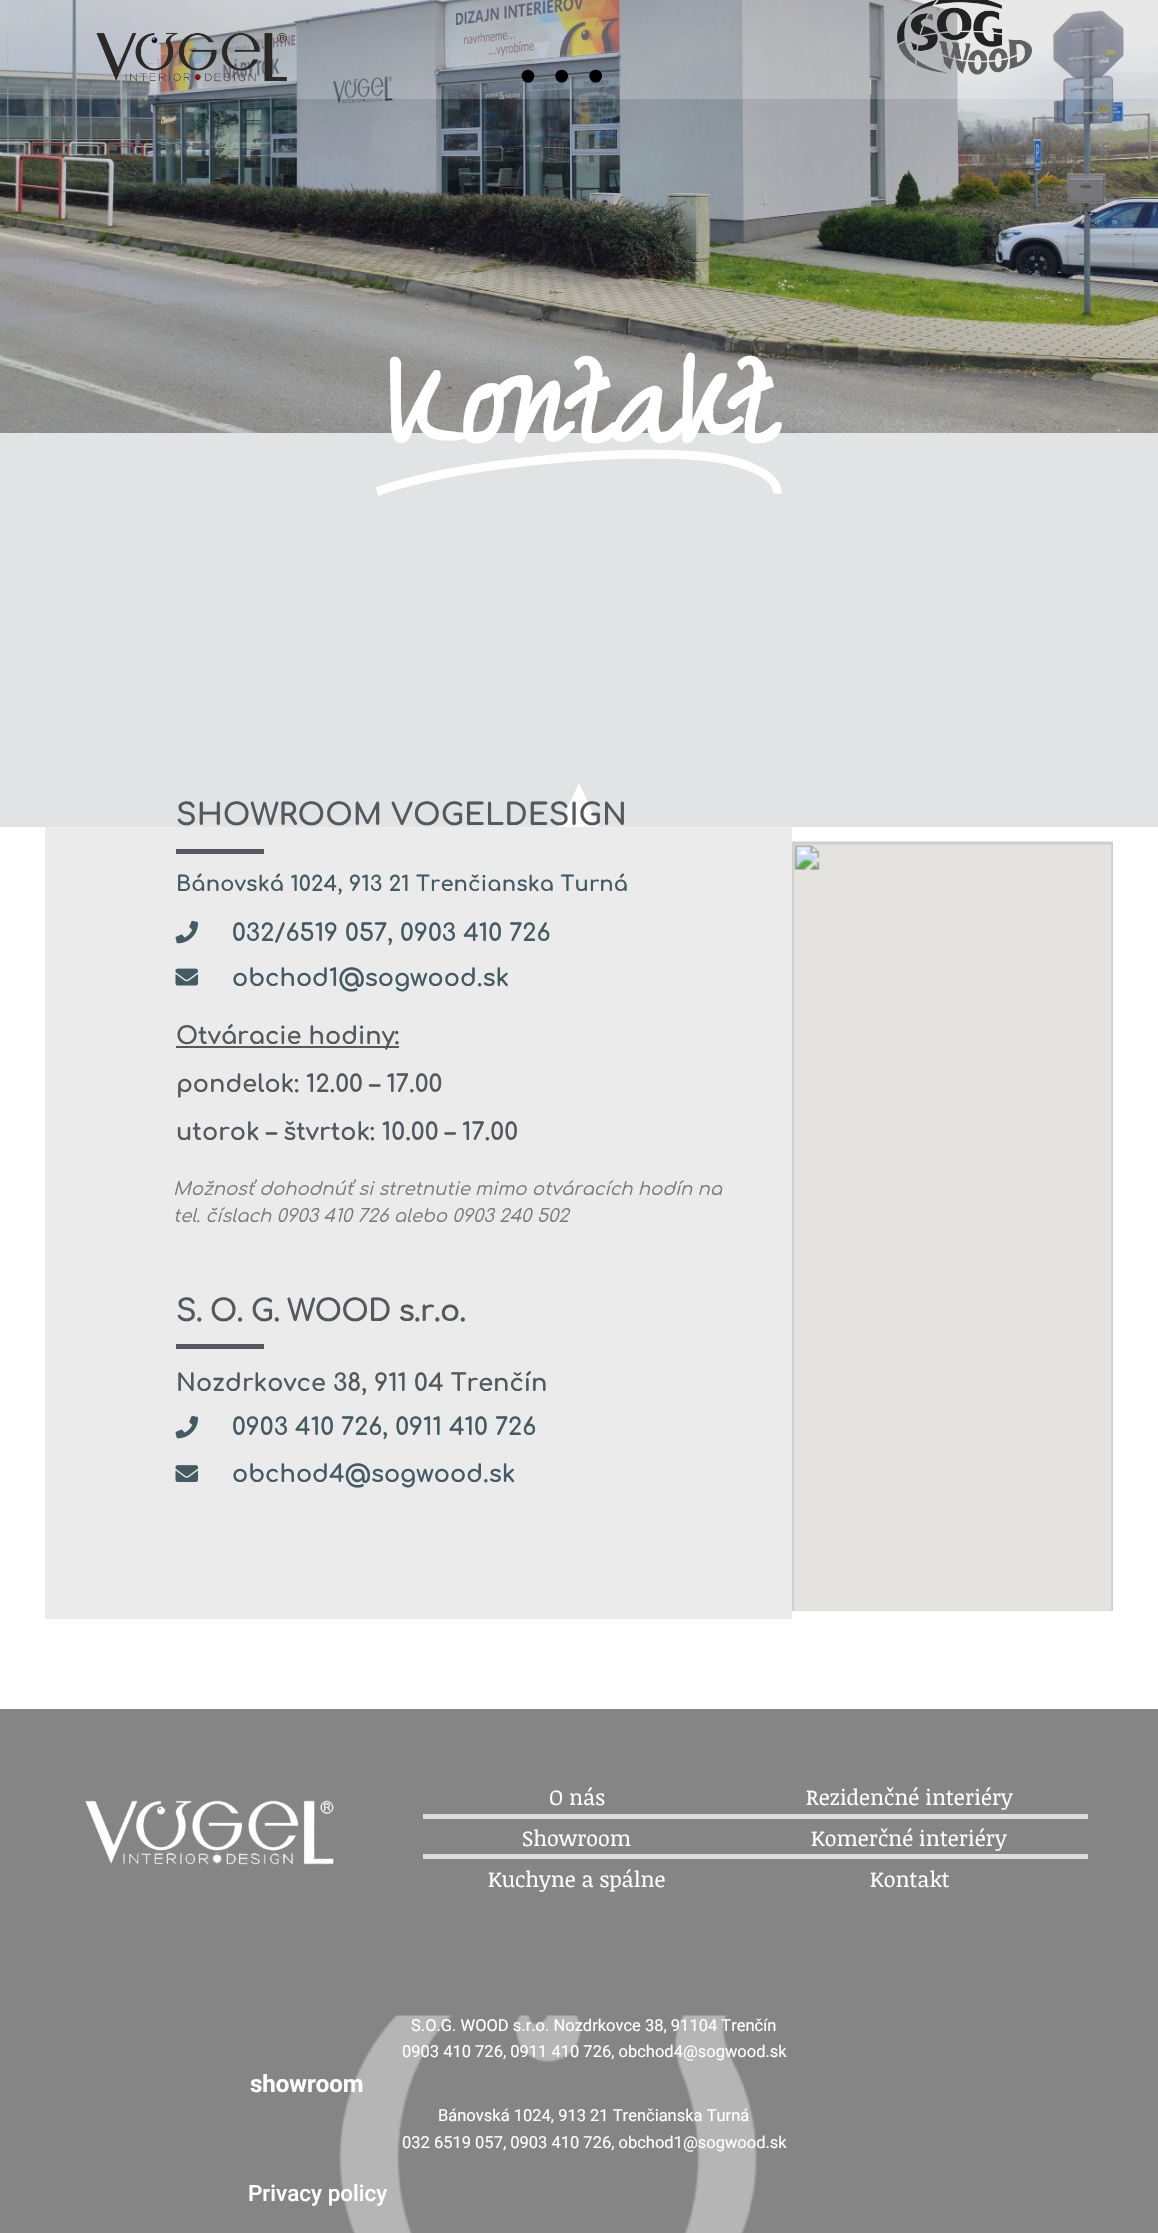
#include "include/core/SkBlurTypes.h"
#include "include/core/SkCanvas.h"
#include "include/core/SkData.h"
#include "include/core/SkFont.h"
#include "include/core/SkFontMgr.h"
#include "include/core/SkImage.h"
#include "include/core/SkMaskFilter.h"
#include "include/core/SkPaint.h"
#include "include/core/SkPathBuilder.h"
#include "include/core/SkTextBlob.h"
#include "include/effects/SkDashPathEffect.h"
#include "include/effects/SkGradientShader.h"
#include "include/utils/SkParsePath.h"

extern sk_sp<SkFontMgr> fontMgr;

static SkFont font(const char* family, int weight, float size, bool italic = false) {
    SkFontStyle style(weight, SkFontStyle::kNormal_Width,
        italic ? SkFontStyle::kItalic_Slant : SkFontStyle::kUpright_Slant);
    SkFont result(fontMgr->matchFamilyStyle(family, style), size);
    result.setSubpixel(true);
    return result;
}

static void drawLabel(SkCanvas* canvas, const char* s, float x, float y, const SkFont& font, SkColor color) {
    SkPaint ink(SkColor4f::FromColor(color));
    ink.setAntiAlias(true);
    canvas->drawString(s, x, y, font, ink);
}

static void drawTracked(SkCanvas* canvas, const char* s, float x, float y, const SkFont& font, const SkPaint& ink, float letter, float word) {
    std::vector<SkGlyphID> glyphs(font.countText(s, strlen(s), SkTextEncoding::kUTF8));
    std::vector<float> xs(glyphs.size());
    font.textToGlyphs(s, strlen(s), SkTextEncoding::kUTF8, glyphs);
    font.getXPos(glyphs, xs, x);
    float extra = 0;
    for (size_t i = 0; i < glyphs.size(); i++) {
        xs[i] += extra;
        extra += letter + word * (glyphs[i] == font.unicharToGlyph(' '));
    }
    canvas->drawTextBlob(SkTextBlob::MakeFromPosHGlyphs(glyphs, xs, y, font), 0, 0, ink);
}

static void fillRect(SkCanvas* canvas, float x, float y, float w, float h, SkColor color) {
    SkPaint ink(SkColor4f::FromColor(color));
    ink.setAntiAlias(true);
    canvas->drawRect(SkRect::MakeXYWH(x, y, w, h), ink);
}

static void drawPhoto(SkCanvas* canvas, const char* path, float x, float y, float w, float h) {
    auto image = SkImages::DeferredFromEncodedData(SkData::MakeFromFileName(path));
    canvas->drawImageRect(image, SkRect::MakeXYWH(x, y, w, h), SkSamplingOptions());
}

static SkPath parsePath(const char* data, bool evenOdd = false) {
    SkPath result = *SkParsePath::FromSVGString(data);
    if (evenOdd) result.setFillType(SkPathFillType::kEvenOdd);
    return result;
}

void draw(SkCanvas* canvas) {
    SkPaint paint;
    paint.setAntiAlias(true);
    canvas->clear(0xFFFFFFFF);
    fillRect(canvas, 0, 433, 1158, 394, 0xFFE2E3E4);
    drawPhoto(canvas, "assets/img1.png", 0, 0, 1158, 433);
    drawPhoto(canvas, "assets/img2.png", 96, 32, 191, 50);
    SkFont font1 = font("Comfortaa", 700, 92);
    paint.setColor(0xFF000000);
    drawTracked(canvas, ". . .", 517, 81, font1, paint, -7.5f, 0);
    drawPhoto(canvas, "assets/img3.png", 897, 0, 135, 75);
    SkFont font2 = font("Zeyada", 700, 154.5f);
    drawLabel(canvas, "Kontakt", 386, 443, font2, 0xFFFFFFFF);
    paint.setStroke(true);
    paint.setStrokeWidth(8.8f);
    paint.setColor(0xFFFFFFFF);
    canvas->drawPath(parsePath("M377 491.5C461.5 462 620.5 449 705 456.5C740 459.5 778 473.5 777.5 493.5"), paint);
    paint.setStroke(false);
    canvas->drawPath(parsePath("M579 783L600 828H558Z"), paint);
    fillRect(canvas, 45, 827, 747, 792, 0xFFEBEBEB);
    SkFont font3 = font("Comfortaa", 700, 30);
    drawLabel(canvas, "SHOWROOM VOGELDESIGN", 176, 825, font3, 0xFF54595F);
    fillRect(canvas, 176, 849, 88, 5, 0xFF54595F);
    SkFont font4 = font("Comfortaa", 700, 21);
    paint.setColor(0xFF455B64);
    drawTracked(canvas, "Bánovská 1024, 913 21 Trenčianska Turná", 176, 891, font4, paint, 0.15f, 0);
    drawPhoto(canvas, "assets/img4.png", 175, 920, 23, 24);
    SkFont font5 = font("Comfortaa", 700, 24);
    drawLabel(canvas, "032/6519 057, 0903 410 726", 232, 941, font5, 0xFF455B64);
    drawPhoto(canvas, "assets/img5.png", 175, 968, 23, 18);
    drawLabel(canvas, "obchod1@sogwood.sk", 232, 986, font5, 0xFF455B64);
    fillRect(canvas, 176, 1046, 223, 2, 0xFF54595F);
    drawLabel(canvas, "Otváracie hodiny:", 176, 1044, font5, 0xFF54595F);
    drawLabel(canvas, "pondelok: 12.00 – 17.00", 176, 1092, font5, 0xFF54595F);
    drawLabel(canvas, "utorok – štvrtok: 10.00 – 17.00", 176, 1140, font5, 0xFF54595F);
    SkFont font6 = font("Comfortaa", 400, 18, true);
    drawLabel(canvas, "Možnosť dohodnúť si stretnutie mimo otváracích hodín na", 173, 1195, font6, 0xFF7A7A7A);
    drawLabel(canvas, "tel. číslach 0903 410 726 alebo 0903 240 502", 173, 1222, font6, 0xFF7A7A7A);
    paint.setColor(0xFF54595F);
    drawTracked(canvas, "S. O. G. WOOD s.r.o.", 176, 1321, font3, paint, -0.9f, 0);
    fillRect(canvas, 176, 1344, 88, 5, 0xFF54595F);
    drawLabel(canvas, "Nozdrkovce 38, 911 04 Trenčín", 176, 1391, font5, 0xFF54595F);
    drawPhoto(canvas, "assets/img4.png", 175, 1415, 23, 24);
    drawLabel(canvas, "0903 410 726, 0911 410 726", 232, 1435, font5, 0xFF455B64);
    drawPhoto(canvas, "assets/img6.png", 175, 1465, 23, 17);
    drawLabel(canvas, "obchod4@sogwood.sk", 232, 1482, font5, 0xFF455B64);
    drawPhoto(canvas, "assets/img7.png", 792, 841, 321, 770);
    fillRect(canvas, 0, 1709, 1158, 524, 0xFF858585);
    drawPhoto(canvas, "assets/img8.png", 85, 1800, 249, 65);
    SkFont font7 = font("Noticia Text", 400, 21.5f);
    drawLabel(canvas, "O nás", 549, 1805, font7, 0xFFFFFFFF);
    fillRect(canvas, 423, 1814, 665, 5, 0xFFDDDDDD);
    drawLabel(canvas, "Showroom", 522, 1846, font7, 0xFFFFFFFF);
    fillRect(canvas, 423, 1854, 665, 5, 0xFFDDDDDD);
    drawLabel(canvas, "Kuchyne a spálne", 488, 1887, font7, 0xFFFFFFFF);
    drawLabel(canvas, "Rezidenčné interiéry", 806, 1805, font7, 0xFFFFFFFF);
    drawLabel(canvas, "Komerčné interiéry", 811, 1846, font7, 0xFFFFFFFF);
    drawLabel(canvas, "Kontakt", 870, 1887, font7, 0xFFFFFFFF);
    drawPhoto(canvas, "assets/img9.png", 339, 2015, 419, 218);
    SkFont font8 = font("Roboto", 400, 16.5f);
    drawLabel(canvas, "S.O.G. WOOD s.r.o. Nozdrkovce 38, 91104 Trenčín", 411, 2031, font8, 0xFFFFFFFF);
    drawLabel(canvas, "0903 410 726, 0911 410 726, obchod4@sogwood.sk", 402, 2057, font8, 0xFFFFFFFF);
    SkFont font9 = font("Roboto", 700, 24);
    drawLabel(canvas, "showroom", 250, 2092, font9, 0xFFFFFFFF);
    drawLabel(canvas, "Bánovská 1024, 913 21 Trenčianska Turná", 438, 2121, font8, 0xFFFFFFFF);
    drawLabel(canvas, "032 6519 057, 0903 410 726, obchod1@sogwood.sk", 402, 2148, font8, 0xFFFFFFFF);
    SkFont font10 = font("Roboto", 500, 22.5f);
    drawLabel(canvas, "Privacy policy", 248, 2201, font10, 0xFFFFFFFF);
}
